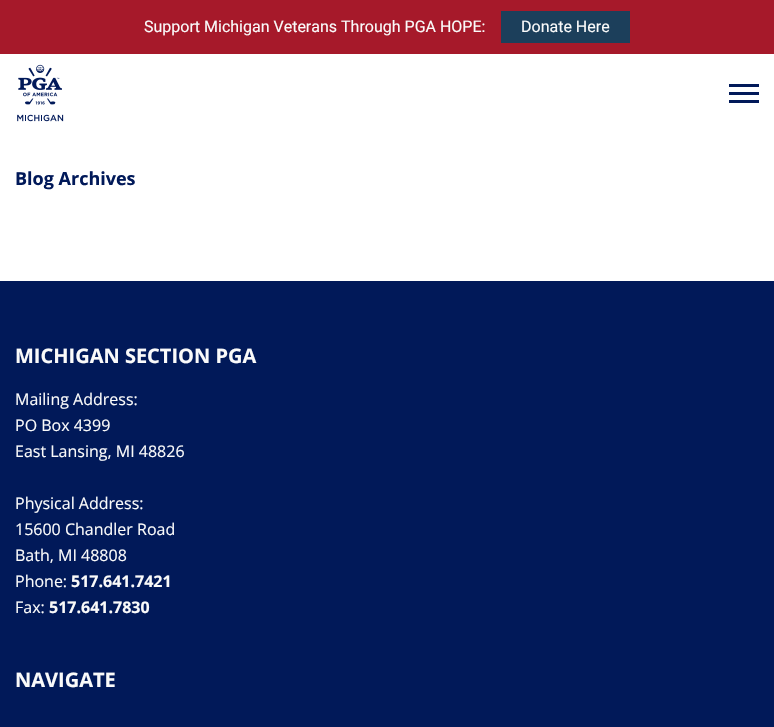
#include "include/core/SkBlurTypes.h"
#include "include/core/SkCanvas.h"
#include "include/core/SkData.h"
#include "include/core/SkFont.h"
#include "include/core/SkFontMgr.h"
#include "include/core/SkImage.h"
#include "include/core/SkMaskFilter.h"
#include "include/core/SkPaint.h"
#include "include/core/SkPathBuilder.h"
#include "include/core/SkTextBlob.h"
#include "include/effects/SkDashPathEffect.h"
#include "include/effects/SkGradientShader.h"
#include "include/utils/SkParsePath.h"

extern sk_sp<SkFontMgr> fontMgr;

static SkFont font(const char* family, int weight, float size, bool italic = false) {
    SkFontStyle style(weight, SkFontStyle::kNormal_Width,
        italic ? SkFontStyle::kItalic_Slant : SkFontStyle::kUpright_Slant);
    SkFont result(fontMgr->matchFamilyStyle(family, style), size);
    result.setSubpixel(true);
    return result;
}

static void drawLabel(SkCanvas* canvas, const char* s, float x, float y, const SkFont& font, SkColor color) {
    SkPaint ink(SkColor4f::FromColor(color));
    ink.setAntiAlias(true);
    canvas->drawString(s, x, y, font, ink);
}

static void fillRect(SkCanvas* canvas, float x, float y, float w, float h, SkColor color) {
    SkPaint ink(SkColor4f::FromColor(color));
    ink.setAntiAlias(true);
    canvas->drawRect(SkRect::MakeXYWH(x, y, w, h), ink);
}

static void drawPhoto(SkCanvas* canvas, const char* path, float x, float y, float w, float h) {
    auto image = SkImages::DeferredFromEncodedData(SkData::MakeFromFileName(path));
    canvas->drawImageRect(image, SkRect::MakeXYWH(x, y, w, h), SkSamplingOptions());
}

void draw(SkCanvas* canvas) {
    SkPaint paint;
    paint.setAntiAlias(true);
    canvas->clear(0xFFFFFFFF);
    fillRect(canvas, 0, 0, 774, 54, 0xFFA6192A);
    SkFont font1 = font("Roboto", 400, 16);
    drawLabel(canvas, "Support Michigan Veterans Through PGA HOPE:", 144, 32, font1, 0xFFFAFAFA);
    fillRect(canvas, 501, 11, 129, 32, 0xFF1C3F5B);
    drawLabel(canvas, "Donate Here", 521, 32, font1, 0xFFFAFAFA);
    drawPhoto(canvas, "assets/img1.png", 17, 64, 47, 58);
    fillRect(canvas, 729, 84, 30, 3, 0xFF011959);
    fillRect(canvas, 729, 92, 30, 3, 0xFF011959);
    fillRect(canvas, 729, 100, 30, 3, 0xFF011959);
    SkFont font2 = font("Open Sans", 700, 18);
    drawLabel(canvas, "Blog Archives", 15, 185, font2, 0xFF011959);
    fillRect(canvas, 0, 281, 774, 446, 0xFF011959);
    SkFont font3 = font("Open Sans", 700, 20);
    drawLabel(canvas, "MICHIGAN SECTION PGA", 15, 363, font3, 0xFFFAFAFA);
    SkFont font4 = font("Open Sans", 400, 16);
    drawLabel(canvas, "Mailing Address:", 15, 405, font4, 0xFFFAFAFA);
    drawLabel(canvas, "PO Box 4399", 15, 431, font4, 0xFFFAFAFA);
    drawLabel(canvas, "East Lansing, MI 48826", 15, 457, font4, 0xFFFAFAFA);
    drawLabel(canvas, "Physical Address:", 15, 509, font4, 0xFFFAFAFA);
    drawLabel(canvas, "15600 Chandler Road", 15, 535, font4, 0xFFFAFAFA);
    drawLabel(canvas, "Bath, MI 48808", 15, 561, font4, 0xFFFAFAFA);
    drawLabel(canvas, "Phone:", 15, 587, font4, 0xFFFAFAFA);
    SkFont font5 = font("Open Sans", 700, 16);
    drawLabel(canvas, "517.641.7421", 71, 587, font5, 0xFFFAFAFA);
    drawLabel(canvas, "Fax:", 15, 613, font4, 0xFFFAFAFA);
    drawLabel(canvas, "517.641.7830", 49, 613, font5, 0xFFFAFAFA);
    drawLabel(canvas, "NAVIGATE", 15, 687, font3, 0xFFFAFAFA);
}
